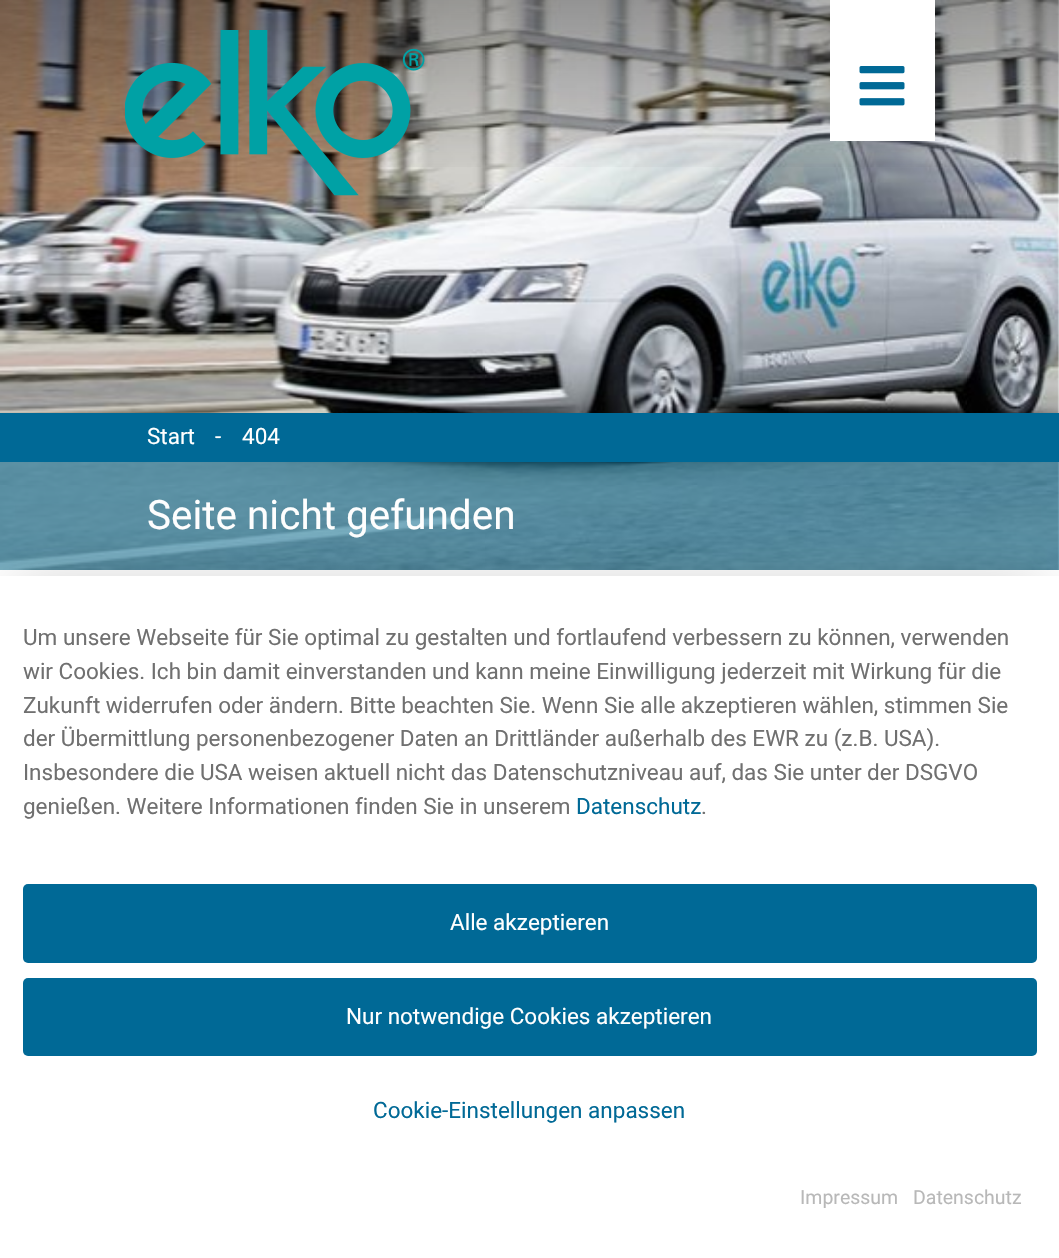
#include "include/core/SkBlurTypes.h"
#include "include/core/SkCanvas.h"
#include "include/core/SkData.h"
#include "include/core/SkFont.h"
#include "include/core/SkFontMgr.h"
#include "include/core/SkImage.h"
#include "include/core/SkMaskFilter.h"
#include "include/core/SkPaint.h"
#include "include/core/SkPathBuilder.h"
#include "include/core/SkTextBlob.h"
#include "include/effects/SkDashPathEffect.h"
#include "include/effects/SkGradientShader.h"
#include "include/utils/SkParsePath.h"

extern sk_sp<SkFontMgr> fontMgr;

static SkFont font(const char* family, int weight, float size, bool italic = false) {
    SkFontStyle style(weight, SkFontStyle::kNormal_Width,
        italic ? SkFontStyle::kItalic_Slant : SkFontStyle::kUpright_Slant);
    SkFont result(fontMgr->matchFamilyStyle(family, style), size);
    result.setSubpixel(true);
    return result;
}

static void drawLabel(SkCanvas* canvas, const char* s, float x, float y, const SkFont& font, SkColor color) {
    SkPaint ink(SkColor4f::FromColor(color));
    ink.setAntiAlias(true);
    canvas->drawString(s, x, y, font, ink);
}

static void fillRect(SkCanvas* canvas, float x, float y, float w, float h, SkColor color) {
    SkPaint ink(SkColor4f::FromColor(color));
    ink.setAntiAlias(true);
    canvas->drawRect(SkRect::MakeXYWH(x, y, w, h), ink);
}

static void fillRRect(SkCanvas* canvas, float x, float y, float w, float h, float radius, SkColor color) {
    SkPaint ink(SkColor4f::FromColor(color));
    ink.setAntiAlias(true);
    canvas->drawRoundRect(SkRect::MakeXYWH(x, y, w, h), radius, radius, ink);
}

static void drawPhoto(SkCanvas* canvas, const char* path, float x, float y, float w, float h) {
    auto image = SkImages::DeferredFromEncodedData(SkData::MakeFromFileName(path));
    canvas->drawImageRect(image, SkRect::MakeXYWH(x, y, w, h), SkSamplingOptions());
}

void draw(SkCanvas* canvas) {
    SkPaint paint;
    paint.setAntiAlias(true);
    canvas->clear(0xFFFFFFFF);
    drawPhoto(canvas, "assets/img3.png", 0, 0, 1059, 570);
    {
        const SkColor colors[] = {0x4D000000, 0x00000000};
        const float stops[] = {0, 0.8f};
        const SkPoint ends[] = {{530, 0}, {530, 225}};
        paint.setShader(SkGradientShader::MakeLinear(ends, colors, stops, 2, SkTileMode::kClamp));
        paint.setAlpha(255);
    }
    canvas->drawRect(SkRect::MakeXYWH(0, 0, 1059, 167), paint);
    drawPhoto(canvas, "assets/img1.png", 125, 30, 300, 166);
    fillRect(canvas, 830, 0, 105, 141, 0xFFFFFFFF);
    drawPhoto(canvas, "assets/img2.png", 859, 66, 46, 40);
    fillRect(canvas, 0, 462, 1059, 108, 0x80006996);
    fillRect(canvas, 0, 413, 1059, 49, 0xFF006996);
    SkFont font1 = font("Roboto", 400, 22.5f);
    drawLabel(canvas, "Start", 147, 444, font1, 0xFFFFFFFF);
    drawLabel(canvas, "-", 215, 444, font1, 0xFFFFFFFF);
    drawLabel(canvas, "404", 242, 444, font1, 0xFFFFFFFF);
    SkFont font2 = font("Roboto", 400, 40.5f);
    drawLabel(canvas, "Seite nicht gefunden", 147, 529, font2, 0xFFFFFFFF);
    paint.setShader(nullptr);
    paint.setColor(0x33000000);
    paint.setMaskFilter(SkMaskFilter::MakeBlur(kNormal_SkBlurStyle, 27));
    canvas->drawRect(SkRect::MakeXYWH(15, 585, 1026, 650), paint);
    paint.setMaskFilter(nullptr);
    fillRect(canvas, 0, 576, 1059, 682, 0xFFFFFFFF);
    drawLabel(canvas, "Um unsere Webseite für Sie optimal zu gestalten und fortlaufend verbessern zu können, verwenden", 23, 645, font1, 0xFF707070);
    drawLabel(canvas, "wir Cookies. Ich bin damit einverstanden und kann meine Einwilligung jederzeit mit Wirkung für die", 23, 679, font1, 0xFF707070);
    drawLabel(canvas, "Zukunft widerrufen oder ändern. Bitte beachten Sie. Wenn Sie alle akzeptieren wählen, stimmen Sie", 23, 713, font1, 0xFF707070);
    drawLabel(canvas, "der Übermittlung personenbezogener Daten an Drittländer außerhalb des EWR zu (z.B. USA).", 23, 746, font1, 0xFF707070);
    drawLabel(canvas, "Insbesondere die USA weisen aktuell nicht das Datenschutzniveau auf, das Sie unter der DSGVO", 23, 780, font1, 0xFF707070);
    drawLabel(canvas, "genießen. Weitere Informationen finden Sie in unserem", 23, 814, font1, 0xFF707070);
    drawLabel(canvas, "Datenschutz", 576, 814, font1, 0xFF006996);
    drawLabel(canvas, ".", 701, 814, font1, 0xFF707070);
    fillRRect(canvas, 23, 884, 1014, 79, 5, 0xFF006996);
    drawLabel(canvas, "Alle akzeptieren", 450, 930, font1, 0xFFFFFFFF);
    fillRRect(canvas, 23, 978, 1014, 78, 5, 0xFF006996);
    drawLabel(canvas, "Nur notwendige Cookies akzeptieren", 346, 1024, font1, 0xFFFFFFFF);
    drawLabel(canvas, "Cookie-Einstellungen anpassen", 373, 1118, font1, 0xFF006996);
    SkFont font3 = font("Roboto", 400, 19.5f);
    drawLabel(canvas, "Impressum", 800, 1204, font3, 0xFFB8B8B8);
    drawLabel(canvas, "Datenschutz", 913, 1204, font3, 0xFFB8B8B8);
}
